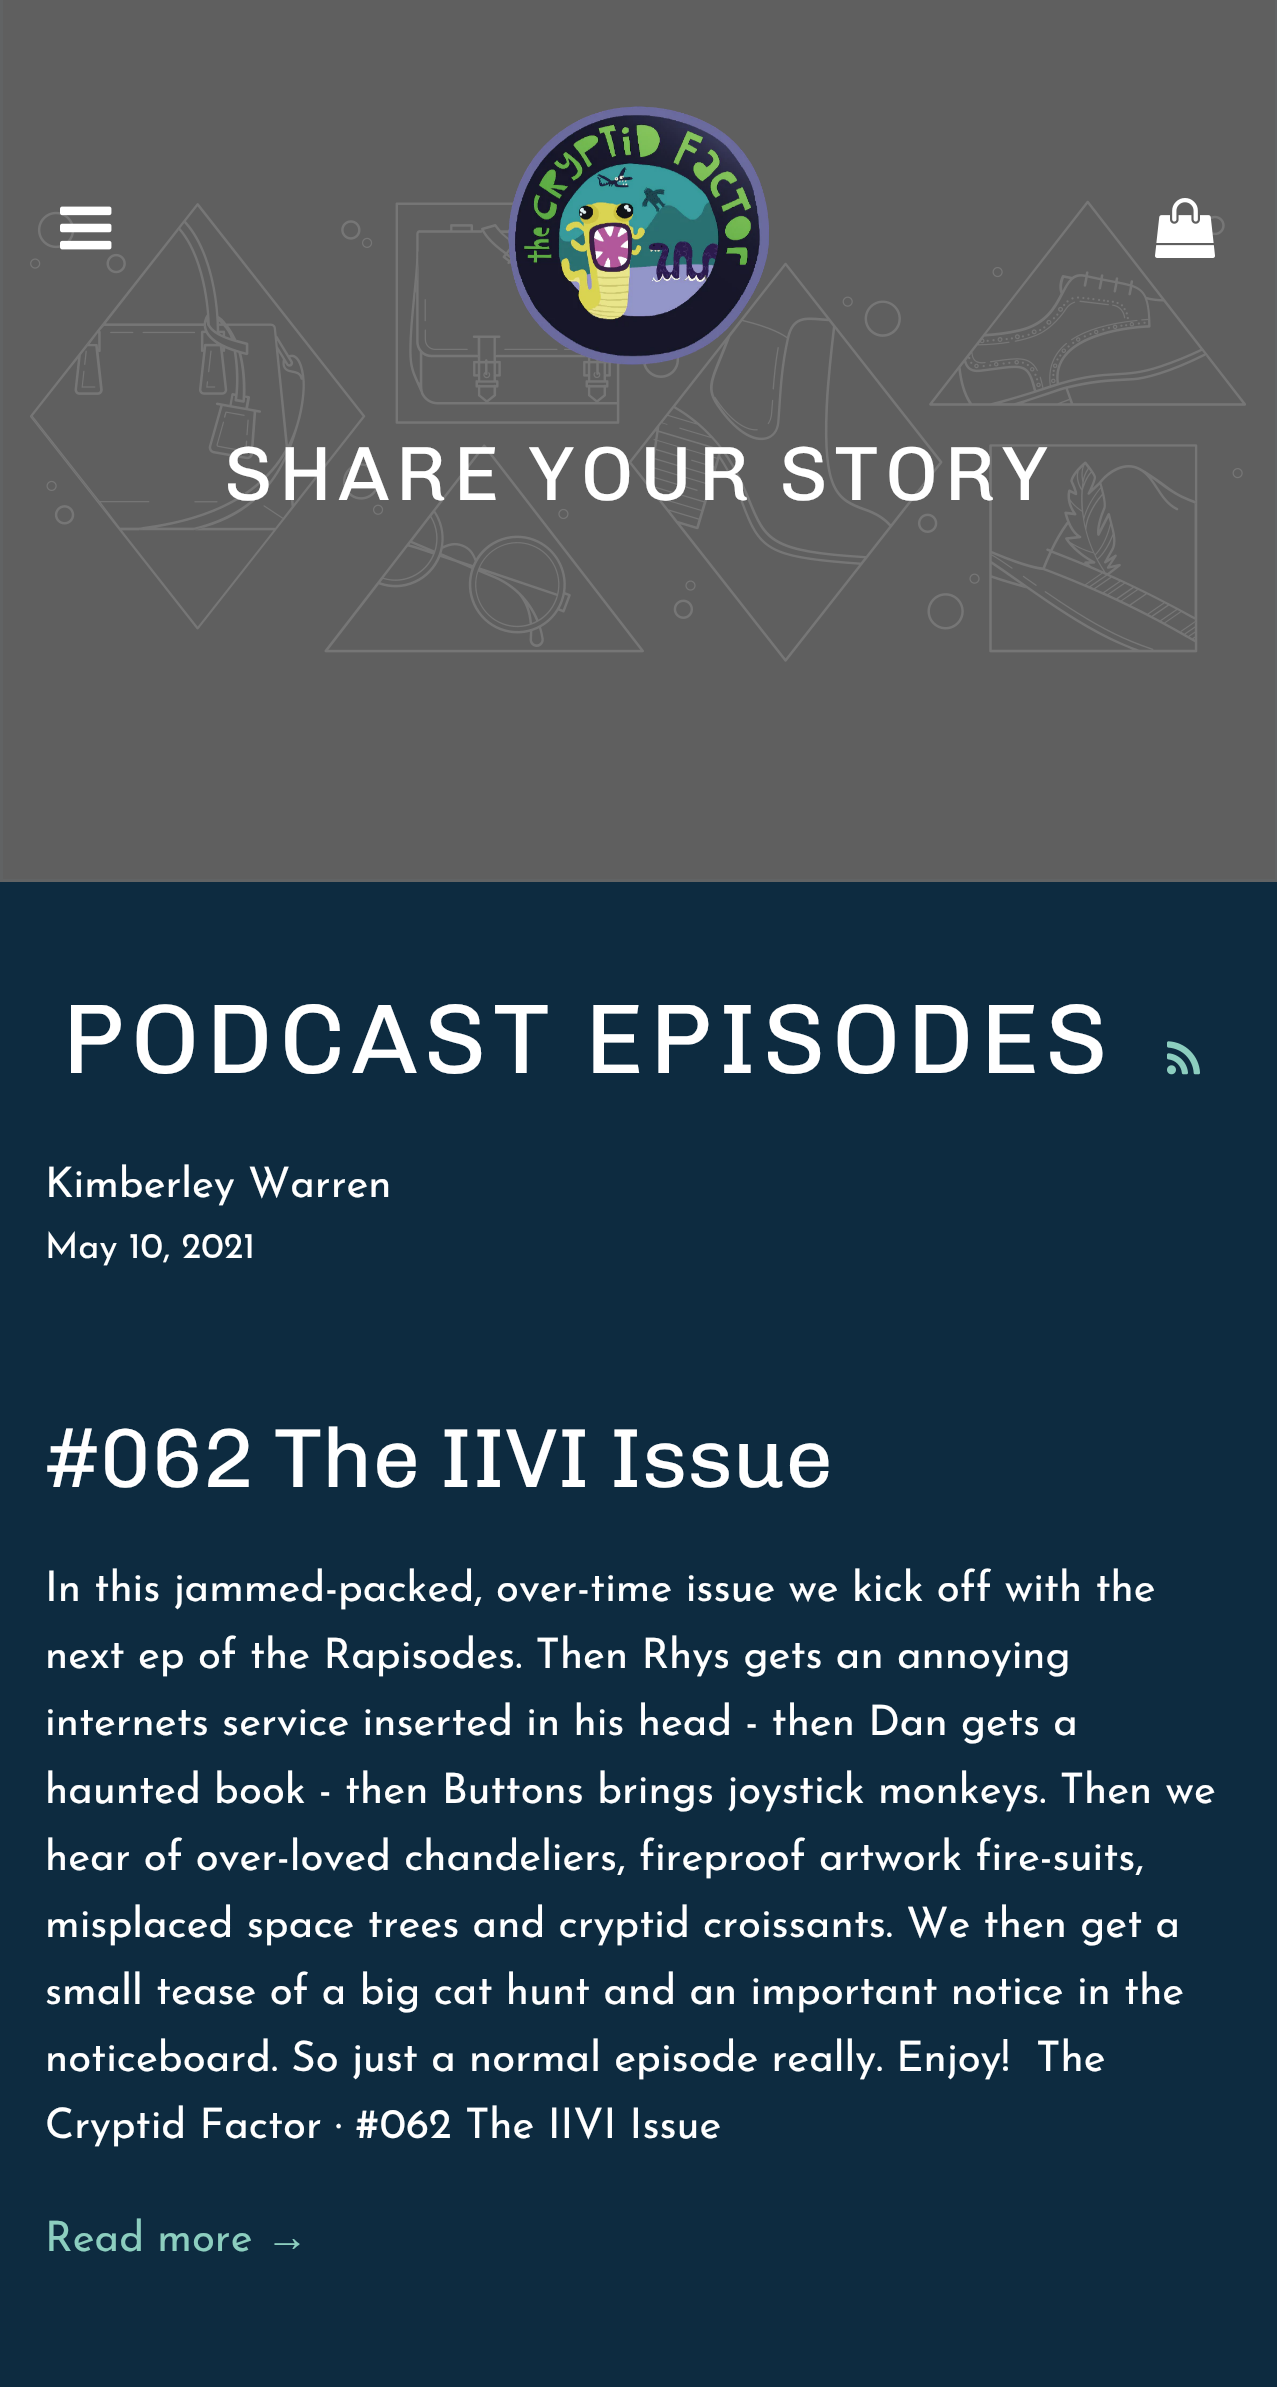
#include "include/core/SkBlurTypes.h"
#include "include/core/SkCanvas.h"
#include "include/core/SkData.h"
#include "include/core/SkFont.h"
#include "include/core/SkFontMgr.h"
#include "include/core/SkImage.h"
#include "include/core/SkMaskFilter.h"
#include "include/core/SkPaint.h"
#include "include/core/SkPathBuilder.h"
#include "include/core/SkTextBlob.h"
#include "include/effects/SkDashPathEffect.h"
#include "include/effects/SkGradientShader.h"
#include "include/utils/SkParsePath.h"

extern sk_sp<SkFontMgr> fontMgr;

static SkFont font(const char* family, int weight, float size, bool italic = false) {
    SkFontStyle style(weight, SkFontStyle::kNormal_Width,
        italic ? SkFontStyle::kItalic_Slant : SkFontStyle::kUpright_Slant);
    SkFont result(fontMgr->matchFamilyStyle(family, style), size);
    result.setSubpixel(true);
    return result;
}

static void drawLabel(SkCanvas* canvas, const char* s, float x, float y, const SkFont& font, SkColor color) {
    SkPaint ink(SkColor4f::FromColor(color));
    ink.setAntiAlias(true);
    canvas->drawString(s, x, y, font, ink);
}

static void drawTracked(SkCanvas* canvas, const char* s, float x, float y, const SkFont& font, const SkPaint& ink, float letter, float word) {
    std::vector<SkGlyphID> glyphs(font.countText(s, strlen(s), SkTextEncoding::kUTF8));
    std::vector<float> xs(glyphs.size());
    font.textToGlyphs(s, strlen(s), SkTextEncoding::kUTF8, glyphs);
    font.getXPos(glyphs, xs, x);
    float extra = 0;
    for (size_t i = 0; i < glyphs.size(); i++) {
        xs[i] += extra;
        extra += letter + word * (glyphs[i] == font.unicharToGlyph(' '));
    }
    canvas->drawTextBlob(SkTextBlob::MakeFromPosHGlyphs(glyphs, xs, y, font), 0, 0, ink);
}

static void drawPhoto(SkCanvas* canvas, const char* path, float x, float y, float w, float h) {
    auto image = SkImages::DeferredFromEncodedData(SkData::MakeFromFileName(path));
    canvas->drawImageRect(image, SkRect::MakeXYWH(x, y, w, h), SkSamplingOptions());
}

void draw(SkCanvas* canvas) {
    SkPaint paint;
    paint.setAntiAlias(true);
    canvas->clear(0xFF0D2B40);
    paint.setColor(0xFF5F5F5F);
    canvas->drawRect(SkRect::MakeXYWH(1.5f, -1.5f, 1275, 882), paint);
    paint.setStroke(true);
    paint.setStrokeWidth(3);
    paint.setColor(0xFF616364);
    canvas->drawRect(SkRect::MakeXYWH(1.5f, -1.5f, 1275, 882), paint);
    drawPhoto(canvas, "assets/img4.png", 30, 200, 1216, 462);
    drawPhoto(canvas, "assets/img1.png", 60, 206, 52, 44);
    drawPhoto(canvas, "assets/img2.png", 508, 106, 261, 259);
    drawPhoto(canvas, "assets/img3.png", 1155, 198, 60, 60);
    SkFont font1 = font("Chivo", 400, 76.75f);
    paint.setStroke(false);
    paint.setColor(0xFFFFFFFF);
    drawTracked(canvas, "SHARE YOUR STORY", 224, 500, font1, paint, 6, 0);
    SkFont font2 = font("Chivo", 400, 99);
    drawTracked(canvas, "PODCAST EPISODES", 62, 1073, font2, paint, 6, 0);
    drawPhoto(canvas, "assets/img5.png", 1167, 1041, 33, 34);
    SkFont font3 = font("Josefin Sans", 400, 42);
    drawLabel(canvas, "Kimberley Warren", 45, 1197, font3, 0xFFFFFFFF);
    SkFont font4 = font("Josefin Sans", 400, 36);
    drawLabel(canvas, "May 10, 2021", 45, 1258, font4, 0xFFFFFFFF);
    SkFont font5 = font("Chivo", 400, 84);
    drawLabel(canvas, "#062 The IIVI Issue", 45, 1487, font5, 0xFFFFFFFF);
    drawLabel(canvas, "In this jammed-packed, over-time issue we kick off with the", 45, 1601, font3, 0xFFFFFFFF);
    drawLabel(canvas, "next ep of the Rapisodes. Then Rhys gets an annoying", 45, 1668, font3, 0xFFFFFFFF);
    drawLabel(canvas, "internets service inserted in his head - then Dan gets a", 45, 1735, font3, 0xFFFFFFFF);
    drawLabel(canvas, "haunted book - then Buttons brings joystick monkeys. Then we", 45, 1803, font3, 0xFFFFFFFF);
    drawLabel(canvas, "hear of over-loved chandeliers, fireproof artwork fire-suits,", 45, 1870, font3, 0xFFFFFFFF);
    drawLabel(canvas, "misplaced space trees and cryptid croissants. We then get a", 45, 1937, font3, 0xFFFFFFFF);
    drawLabel(canvas, "small tease of a big cat hunt and an important notice in the", 45, 2004, font3, 0xFFFFFFFF);
    drawLabel(canvas, "noticeboard. So just a normal episode really. Enjoy!", 45, 2071, font3, 0xFFFFFFFF);
    drawLabel(canvas, "The", 1036, 2071, font3, 0xFFFFFFFF);
    drawLabel(canvas, "Cryptid Factor · #062 The IIVI Issue", 45, 2138, font3, 0xFFFFFFFF);
    drawLabel(canvas, "Read more", 45, 2251, font3, 0xFF8CCEBF);
    SkFont font6 = font("Liberation Sans", 400, 42);
    drawLabel(canvas, "→", 266, 2251, font6, 0xFF8CCEBF);
}
